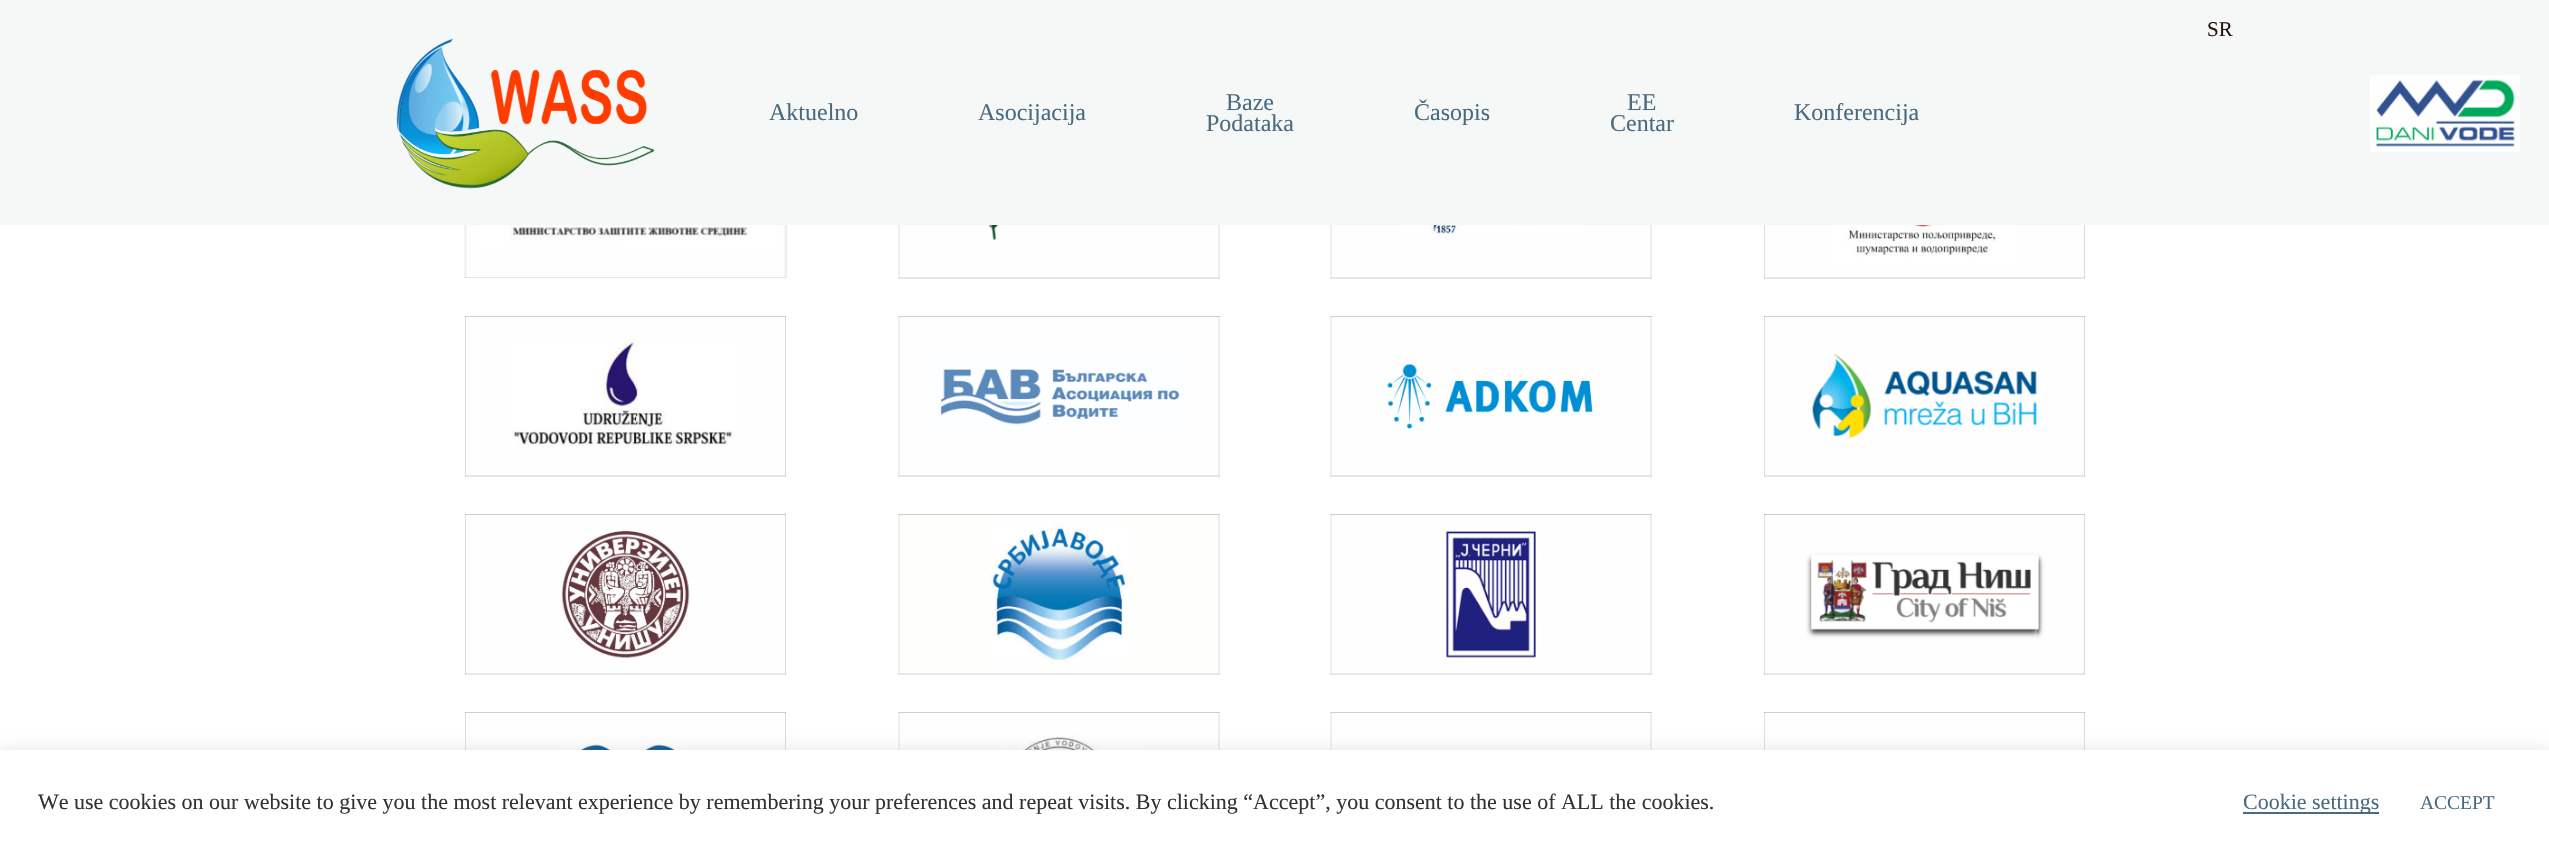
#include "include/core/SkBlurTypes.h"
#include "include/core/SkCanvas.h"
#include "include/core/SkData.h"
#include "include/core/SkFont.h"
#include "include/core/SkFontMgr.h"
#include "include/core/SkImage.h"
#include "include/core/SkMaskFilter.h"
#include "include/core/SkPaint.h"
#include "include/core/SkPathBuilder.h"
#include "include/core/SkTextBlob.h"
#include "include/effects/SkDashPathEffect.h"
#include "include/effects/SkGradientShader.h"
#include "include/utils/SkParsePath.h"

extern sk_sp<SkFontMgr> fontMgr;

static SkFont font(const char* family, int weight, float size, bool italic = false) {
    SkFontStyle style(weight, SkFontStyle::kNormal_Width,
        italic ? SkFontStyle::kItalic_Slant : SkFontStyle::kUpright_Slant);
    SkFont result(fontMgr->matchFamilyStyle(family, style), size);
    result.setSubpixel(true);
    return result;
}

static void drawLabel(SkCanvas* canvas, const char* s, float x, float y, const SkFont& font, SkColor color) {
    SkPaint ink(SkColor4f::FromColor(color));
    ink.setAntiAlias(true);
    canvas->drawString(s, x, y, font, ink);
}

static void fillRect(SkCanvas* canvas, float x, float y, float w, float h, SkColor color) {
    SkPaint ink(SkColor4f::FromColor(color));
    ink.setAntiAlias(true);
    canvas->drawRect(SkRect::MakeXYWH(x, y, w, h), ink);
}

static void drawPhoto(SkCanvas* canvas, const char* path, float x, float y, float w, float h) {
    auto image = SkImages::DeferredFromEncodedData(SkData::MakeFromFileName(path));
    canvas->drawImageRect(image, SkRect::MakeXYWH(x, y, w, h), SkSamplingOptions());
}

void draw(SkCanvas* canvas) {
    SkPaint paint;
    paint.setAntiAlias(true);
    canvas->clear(0xFFFFFFFF);
    fillRect(canvas, 0, 0, 2549, 225, 0xFFF6F8F7);
    SkFont font1 = font("Liberation Serif", 400, 21);
    drawLabel(canvas, "SR", 2207, 36, font1, 0xFF25150E);
    drawPhoto(canvas, "assets/img1.png", 396, 38, 259, 151);
    SkFont font2 = font("Liberation Serif", 400, 24);
    drawLabel(canvas, "Aktuelno", 769, 120, font2, 0xFF4A6A7F);
    drawLabel(canvas, "Asocijacija", 978, 120, font2, 0xFF4A6A7F);
    drawLabel(canvas, "Baze", 1226, 110, font2, 0xFF4A6A7F);
    drawLabel(canvas, "Podataka", 1206, 131, font2, 0xFF4A6A7F);
    drawLabel(canvas, "Časopis", 1414, 120, font2, 0xFF4A6A7F);
    drawLabel(canvas, "EE", 1627, 110, font2, 0xFF4A6A7F);
    drawLabel(canvas, "Centar", 1610, 131, font2, 0xFF4A6A7F);
    drawLabel(canvas, "Konferencija", 1794, 120, font2, 0xFF4A6A7F);
    drawPhoto(canvas, "assets/img2.png", 2370, 75, 150, 77);
    drawPhoto(canvas, "assets/img3.png", 464, 225, 323, 53);
    drawPhoto(canvas, "assets/img4.png", 898, 225, 322, 54);
    drawPhoto(canvas, "assets/img5.png", 1330, 225, 322, 54);
    drawPhoto(canvas, "assets/img6.png", 1764, 225, 321, 54);
    drawPhoto(canvas, "assets/img7.png", 465, 316, 321, 161);
    drawPhoto(canvas, "assets/img8.png", 898, 316, 322, 161);
    drawPhoto(canvas, "assets/img9.png", 1330, 316, 322, 161);
    drawPhoto(canvas, "assets/img10.png", 1764, 316, 321, 161);
    drawPhoto(canvas, "assets/img11.png", 465, 514, 321, 161);
    drawPhoto(canvas, "assets/img12.png", 898, 514, 322, 161);
    drawPhoto(canvas, "assets/img13.png", 1330, 514, 322, 161);
    drawPhoto(canvas, "assets/img14.png", 1764, 514, 321, 161);
    drawPhoto(canvas, "assets/img15.png", 465, 712, 321, 38);
    drawPhoto(canvas, "assets/img16.png", 898, 712, 322, 38);
    drawPhoto(canvas, "assets/img17.png", 1330, 712, 322, 38);
    drawPhoto(canvas, "assets/img18.png", 1764, 712, 321, 38);
    paint.setColor(0x4DACABAB);
    paint.setMaskFilter(SkMaskFilter::MakeBlur(kNormal_SkBlurStyle, 7.5f));
    canvas->drawRect(SkRect::MakeXYWH(0, 749, 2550, 103), paint);
    paint.setMaskFilter(nullptr);
    fillRect(canvas, 0, 750, 2549, 103, 0xFFFFFFFF);
    SkFont font3 = font("Liberation Serif", 400, 22);
    drawLabel(canvas, "We use cookies on our website to give you the most relevant experience by remembering your preferences and repeat visits. By clicking “Accept”, you consent to the use of ALL the cookies.", 38, 809, font3, 0xFF333333);
    fillRect(canvas, 2243, 812, 136, 2, 0xFF4A6A7F);
    drawLabel(canvas, "Cookie settings", 2243, 809, font3, 0xFF4A6A7F);
    SkFont font4 = font("Liberation Serif", 400, 19.5f);
    drawLabel(canvas, "ACCEPT", 2420, 809, font4, 0xFF4A6A7F);
}
